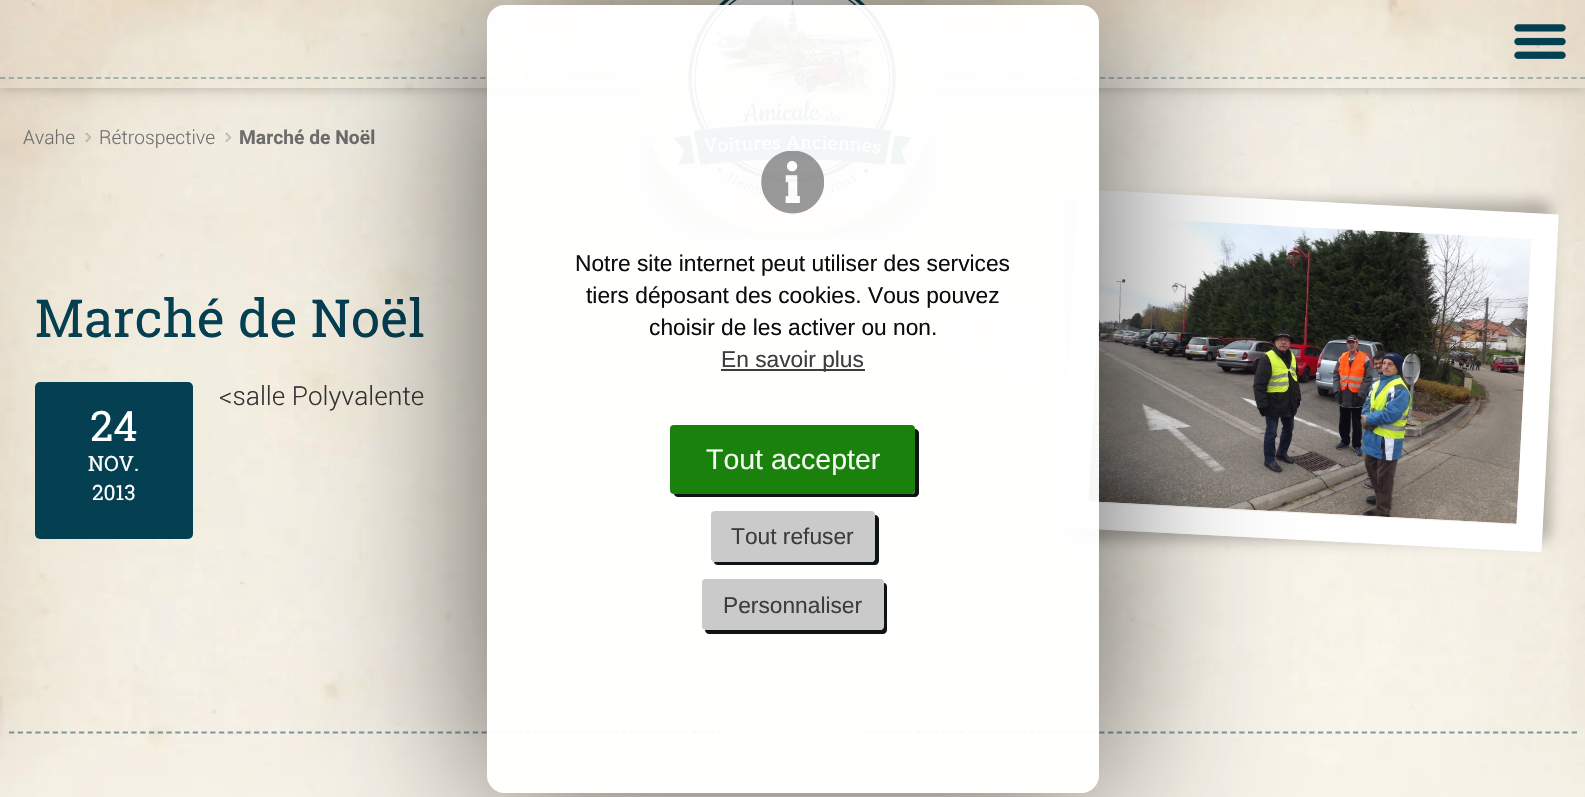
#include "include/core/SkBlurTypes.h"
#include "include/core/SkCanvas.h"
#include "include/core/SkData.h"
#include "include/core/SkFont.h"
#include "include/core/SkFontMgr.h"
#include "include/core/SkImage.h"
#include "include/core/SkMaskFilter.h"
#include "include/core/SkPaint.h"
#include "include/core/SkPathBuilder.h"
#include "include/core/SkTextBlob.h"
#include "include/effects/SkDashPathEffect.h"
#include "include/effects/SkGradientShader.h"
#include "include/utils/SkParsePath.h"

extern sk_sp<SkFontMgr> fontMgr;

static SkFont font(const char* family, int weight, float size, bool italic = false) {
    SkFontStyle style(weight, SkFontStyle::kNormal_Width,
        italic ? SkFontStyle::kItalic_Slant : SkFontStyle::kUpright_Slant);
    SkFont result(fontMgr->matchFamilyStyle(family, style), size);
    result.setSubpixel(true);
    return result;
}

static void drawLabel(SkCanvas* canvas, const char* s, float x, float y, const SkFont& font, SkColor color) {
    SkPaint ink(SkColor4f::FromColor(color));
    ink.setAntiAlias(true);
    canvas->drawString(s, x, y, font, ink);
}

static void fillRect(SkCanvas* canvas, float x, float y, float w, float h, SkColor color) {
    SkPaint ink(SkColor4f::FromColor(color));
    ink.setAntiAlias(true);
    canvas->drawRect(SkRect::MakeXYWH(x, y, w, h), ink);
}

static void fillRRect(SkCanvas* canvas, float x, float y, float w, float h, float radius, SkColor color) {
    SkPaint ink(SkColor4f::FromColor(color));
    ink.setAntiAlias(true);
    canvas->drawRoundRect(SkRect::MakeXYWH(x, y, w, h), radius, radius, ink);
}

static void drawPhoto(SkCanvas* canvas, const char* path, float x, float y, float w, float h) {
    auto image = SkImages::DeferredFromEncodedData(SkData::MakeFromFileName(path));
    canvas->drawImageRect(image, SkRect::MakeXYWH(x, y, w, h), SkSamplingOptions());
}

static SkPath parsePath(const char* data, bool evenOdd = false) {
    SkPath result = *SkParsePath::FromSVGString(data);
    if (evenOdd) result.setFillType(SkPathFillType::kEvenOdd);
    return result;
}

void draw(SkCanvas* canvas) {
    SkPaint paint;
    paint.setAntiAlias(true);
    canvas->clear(0xFFFFFFFF);
    drawPhoto(canvas, "assets/img1.png", 0, 0, 1585, 797);
    canvas->save();
    canvas->clipPath(parsePath("M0 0H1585V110H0ZM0 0H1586V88H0Z", true), true);
    paint.setColor(0x40000000);
    paint.setMaskFilter(SkMaskFilter::MakeBlur(kNormal_SkBlurStyle, 7));
    canvas->drawRect(SkRect::MakeXYWH(0, 0, 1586, 88), paint);
    paint.setMaskFilter(nullptr);
    canvas->restore();
    drawPhoto(canvas, "assets/img2.png", 2, 87, 1583, 1);
    paint.setMaskFilter(SkMaskFilter::MakeBlur(kNormal_SkBlurStyle, 7));
    canvas->drawRoundRect(SkRect::MakeXYWH(644, 88, 289, 148), 144, 144, paint);
    paint.setMaskFilter(nullptr);
    paint.setStroke(true);
    paint.setStrokeWidth(1.8f);
    paint.setColor(0x4D053F52);
    paint.setPathEffect(SkDashPathEffect::Make({{5.25f, 3.48f}}, 0));
    canvas->drawPath(parsePath("M0 78H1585.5"), paint);
    paint.setPathEffect(nullptr);
    drawPhoto(canvas, "assets/img4.png", 640, 70, 298, 167);
    drawPhoto(canvas, "assets/img3.png", 673, 0, 240, 200);
    drawPhoto(canvas, "assets/img5.png", 1514, 24, 52, 35);
    SkFont font1 = font("Roboto", 300, 19.25f);
    drawLabel(canvas, "Avahe", 23, 144, font1, 0xFF6D6D6D);
    drawPhoto(canvas, "assets/img6.png", 85, 133, 6, 9);
    drawLabel(canvas, "Rétrospective", 99, 144, font1, 0xFF6D6D6D);
    drawPhoto(canvas, "assets/img7.png", 225, 133, 6, 9);
    SkFont font2 = font("Roboto", 700, 19.25f);
    drawLabel(canvas, "Marché de Noël", 239, 144, font2, 0xFF6D6D6D);
    SkFont font3 = font("Roboto Slab", 400, 52.5f);
    drawLabel(canvas, "Marché de Noël", 35, 337, font3, 0xFF053F52);
    SkFont font4 = font("Roboto", 300, 26.25f);
    drawLabel(canvas, "<salle Polyvalente", 219, 405, font4, 0xFF333333);
    fillRRect(canvas, 35, 382, 158, 157, 5, 0xFF053F52);
    SkFont font5 = font("Roboto Slab", 400, 42);
    drawLabel(canvas, "24", 90, 441, font5, 0xFFFFFFFF);
    SkFont font6 = font("Roboto Slab", 400, 21);
    drawLabel(canvas, "NOV.", 88, 471, font6, 0xFFFFFFFF);
    drawLabel(canvas, "2013", 92, 500, font6, 0xFFFFFFFF);
    canvas->save();
    canvas->clipPath(parsePath("M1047 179H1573V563H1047ZM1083 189.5L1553.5 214.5C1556.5 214.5 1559 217 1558.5 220L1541.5 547C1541.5 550 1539 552.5 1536 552L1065.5 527.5C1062.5 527.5 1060 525 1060.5 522L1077.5 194.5C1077.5 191.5 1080 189.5 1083 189.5Z", true), true);
    paint.setStroke(false);
    paint.setColor(0x40000000);
    paint.setMaskFilter(SkMaskFilter::MakeBlur(kNormal_SkBlurStyle, 7));
    canvas->drawRoundRect(SkRect::MakeXYWH(1069, 201, 482, 340), 5, 5, paint);
    paint.setMaskFilter(nullptr);
    canvas->restore();
    paint.setStroke(true);
    paint.setStrokeWidth(26.3f);
    paint.setColor(0xFFFFFFFF);
    canvas->drawPath(parsePath("M1090.5 203L1545 227L1529 538.5L1074 515Z"), paint);
    drawPhoto(canvas, "assets/img8.png", 1088, 217, 443, 307);
    canvas->save();
    canvas->clipRect(SkRect::MakeXYWH(9, 707, 1568, 46));
    paint.setStrokeWidth(1.8f);
    paint.setColor(0x80053F52);
    paint.setPathEffect(SkDashPathEffect::Make({{5.25f, 3.5f}}, 0));
    canvas->drawPath(parsePath("M-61 732.5H723"), paint);
    paint.setPathEffect(nullptr);
    paint.setPathEffect(SkDashPathEffect::Make({{5.25f, 3.5f}}, 0));
    canvas->drawPath(parsePath("M863 732.5H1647"), paint);
    paint.setPathEffect(nullptr);
    canvas->restore();
    canvas->save();
    canvas->clipPath(parsePath("M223 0H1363V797H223ZM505 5H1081C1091 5 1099 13 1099 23V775C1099 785 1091 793 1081 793H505C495 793 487 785 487 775V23C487 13 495 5 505 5Z", true), true);
    paint.setStroke(false);
    paint.setColor(0xA8000000);
    paint.setMaskFilter(SkMaskFilter::MakeBlur(kNormal_SkBlurStyle, 87.5f));
    canvas->drawRoundRect(SkRect::MakeXYWH(487, 5, 612, 788), 18, 18, paint);
    paint.setMaskFilter(nullptr);
    canvas->restore();
    fillRRect(canvas, 487, 5, 612, 788, 18, 0xF2FFFFFF);
    drawPhoto(canvas, "assets/img9.png", 761, 151, 63, 63);
    SkFont font7 = font("Liberation Sans", 400, 22.75f);
    drawLabel(canvas, "Notre site internet peut utiliser des services", 575, 271, font7, 0xFF0D0D0D);
    drawLabel(canvas, "tiers déposant des cookies. Vous pouvez", 586, 303, font7, 0xFF0D0D0D);
    drawLabel(canvas, "choisir de les activer ou non.", 649, 335, font7, 0xFF0D0D0D);
    fillRect(canvas, 721, 369, 144, 2, 0xFF3D3D3D);
    drawLabel(canvas, "En savoir plus", 721, 367, font7, 0xFF3D3D3D);
    paint.setColor(0xFF0E1416);
    canvas->drawPath(parsePath("M674 494C674 495 676 497 678 497H915C917 497 919 495 919 493V433C919 431 917 429 915 429V490C915 492 914 494 912 494Z"), paint);
    fillRRect(canvas, 670, 425, 245, 69, 4, 0xF20E7A00);
    SkFont font8 = font("Liberation Sans", 400, 28.5f);
    drawLabel(canvas, "Tout accepter", 706, 469, font8, 0xFFF4F9F3);
    canvas->drawPath(parsePath("M714 562C714 564 716 565 718 565H875C877 565 879 563 879 561V519C879 517 877 515 875 515V558C875 560 873 562 872 562Z"), paint);
    fillRRect(canvas, 711, 511, 164, 51, 4, 0xF2C7C7C7);
    drawLabel(canvas, "Tout refuser", 731, 544, font7, 0xFF3D3D3D);
    canvas->drawPath(parsePath("M705 630C705 632 707 634 709 634H883C885 634 887 632 887 630V587C887 585 886 583 884 583V619C884 622 885 630 880 630Z"), paint);
    fillRRect(canvas, 702, 579, 182, 51, 4, 0xF2C7C7C7);
    drawLabel(canvas, "Personnaliser", 723, 613, font7, 0xFF3D3D3D);
}
